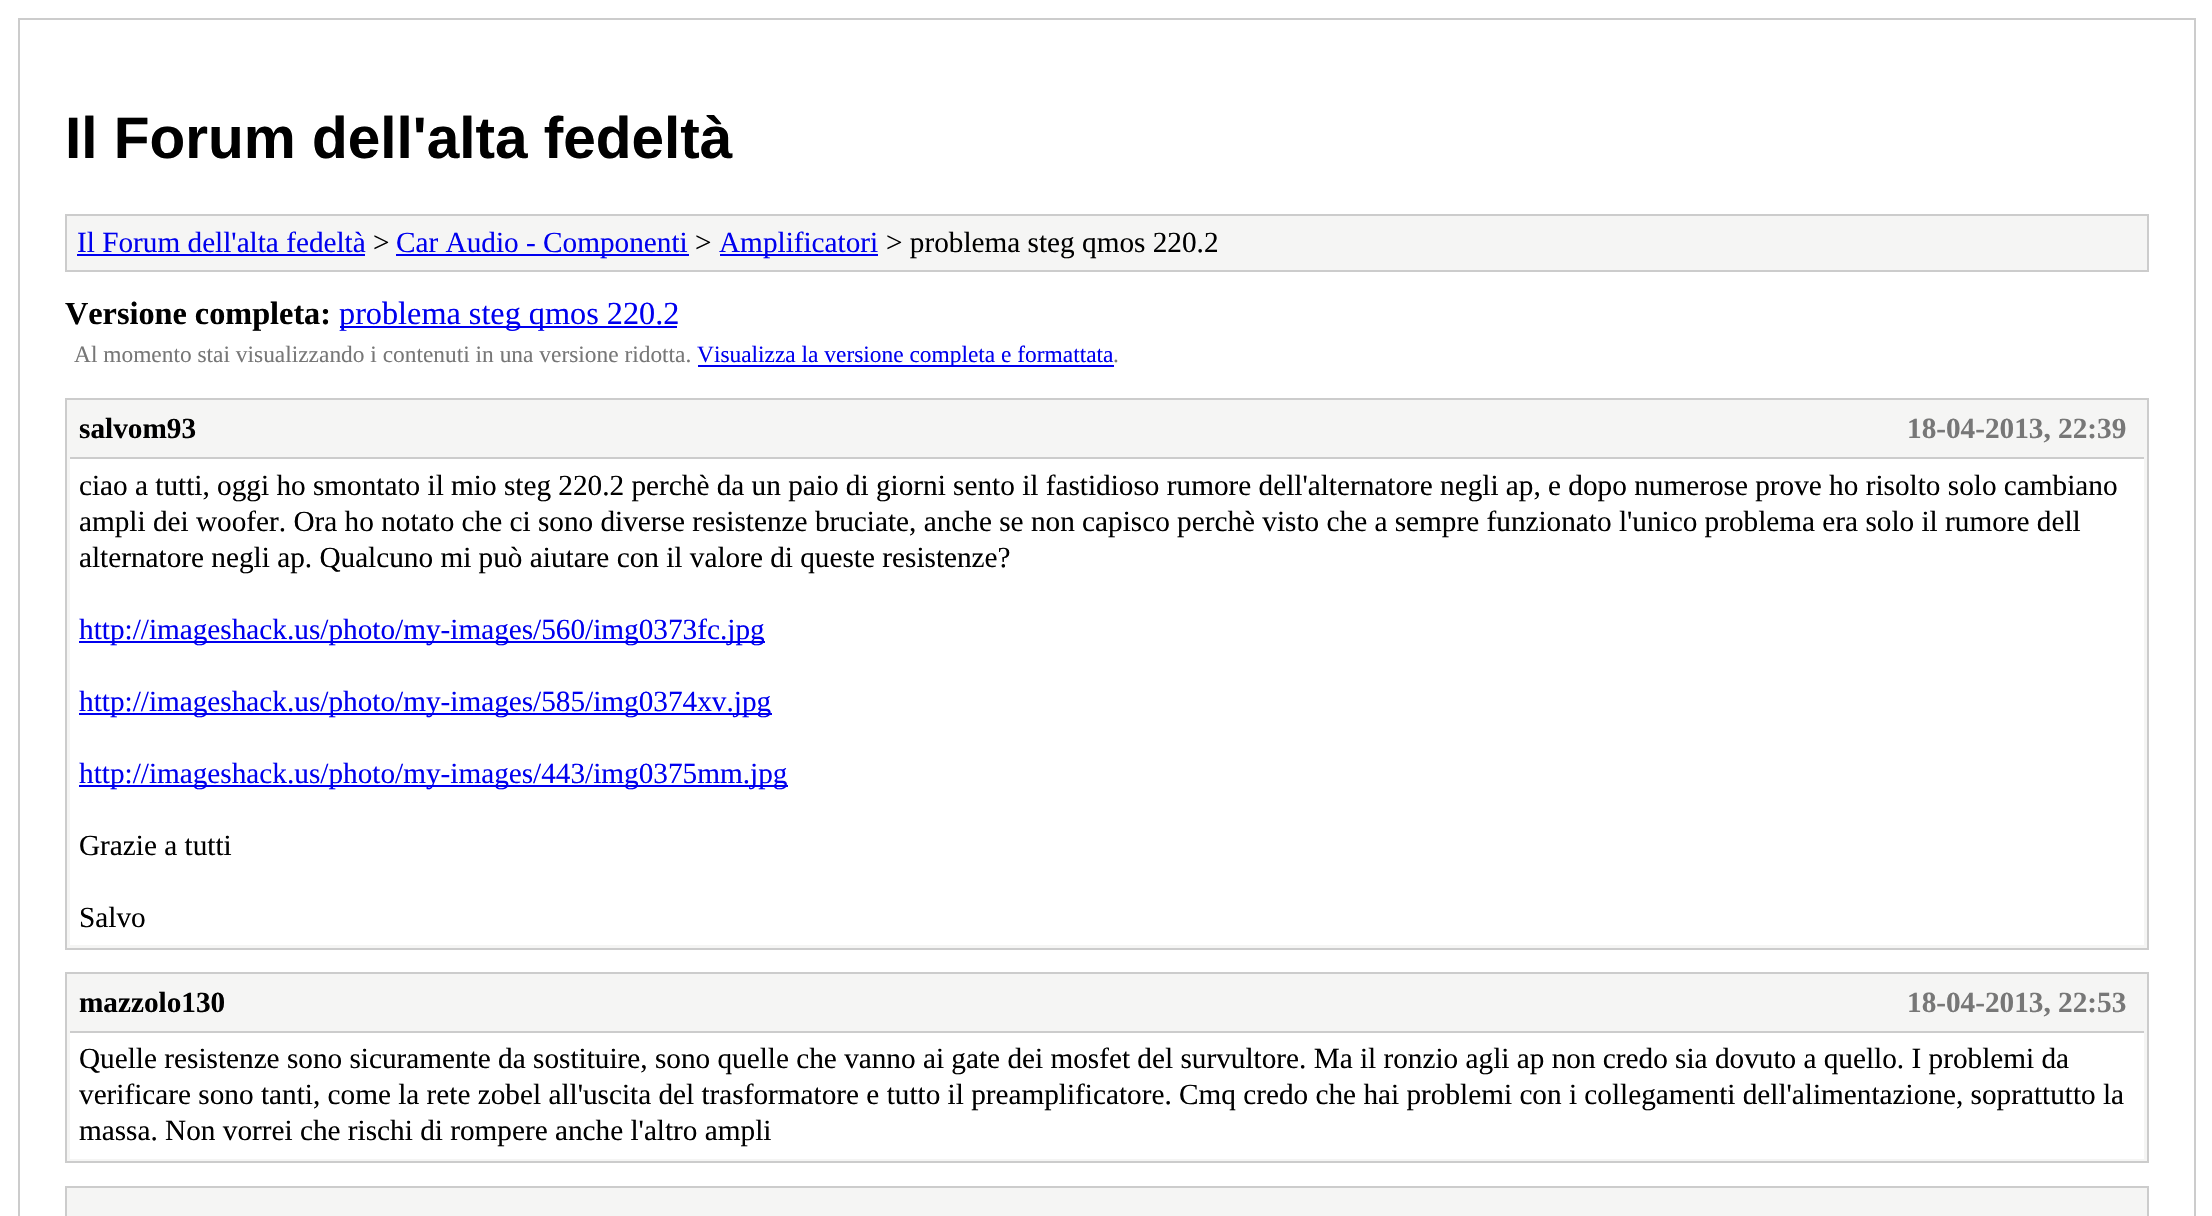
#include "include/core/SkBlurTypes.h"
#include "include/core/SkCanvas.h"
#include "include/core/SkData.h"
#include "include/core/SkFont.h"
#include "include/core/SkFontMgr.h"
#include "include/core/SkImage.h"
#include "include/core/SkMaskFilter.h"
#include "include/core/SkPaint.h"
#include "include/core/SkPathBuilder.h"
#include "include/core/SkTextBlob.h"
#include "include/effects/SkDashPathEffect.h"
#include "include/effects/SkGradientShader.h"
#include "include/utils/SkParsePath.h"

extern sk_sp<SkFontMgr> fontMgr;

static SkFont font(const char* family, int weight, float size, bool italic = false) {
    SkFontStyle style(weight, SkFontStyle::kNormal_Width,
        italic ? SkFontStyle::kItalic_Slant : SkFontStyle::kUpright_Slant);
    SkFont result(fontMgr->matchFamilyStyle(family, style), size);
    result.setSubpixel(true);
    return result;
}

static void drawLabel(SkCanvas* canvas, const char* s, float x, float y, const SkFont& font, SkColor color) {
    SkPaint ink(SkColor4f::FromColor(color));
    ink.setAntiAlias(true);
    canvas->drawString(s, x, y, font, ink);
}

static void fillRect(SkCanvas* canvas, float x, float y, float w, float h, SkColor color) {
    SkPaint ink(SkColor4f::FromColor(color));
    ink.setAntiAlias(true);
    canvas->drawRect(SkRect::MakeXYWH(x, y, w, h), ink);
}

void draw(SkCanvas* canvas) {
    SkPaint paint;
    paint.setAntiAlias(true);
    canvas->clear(0xFFFFFFFF);
    paint.setStroke(true);
    paint.setStrokeWidth(2);
    paint.setColor(0xFFCCCCCC);
    canvas->drawRect(SkRect::MakeXYWH(19, 19, 2176, 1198), paint);
    SkFont font1 = font("Liberation Sans", 700, 58.5f);
    drawLabel(canvas, "Il Forum dell'alta fedeltà", 65, 158, font1, 0xFF000000);
    paint.setStroke(false);
    paint.setColor(0xFFF5F5F4);
    canvas->drawRect(SkRect::MakeXYWH(66, 215, 2082, 56), paint);
    paint.setStroke(true);
    paint.setColor(0xFFCCCCCC);
    canvas->drawRect(SkRect::MakeXYWH(66, 215, 2082, 56), paint);
    SkFont font2 = font("Liberation Serif", 400, 29.25f);
    drawLabel(canvas, "Il Forum dell'alta fedeltà", 77, 252, font2, 0xFF0000EE);
    fillRect(canvas, 77, 254, 288, 2, 0xFF0000EE);
    drawLabel(canvas, ">", 373, 252, font2, 0xFF000000);
    fillRect(canvas, 396, 254, 293, 2, 0xFF0000EE);
    drawLabel(canvas, "Car Audio - Componenti", 396, 252, font2, 0xFF0000EE);
    drawLabel(canvas, ">", 695, 252, font2, 0xFF000000);
    fillRect(canvas, 720, 254, 158, 2, 0xFF0000EE);
    drawLabel(canvas, "Amplificatori", 719, 252, font2, 0xFF0000EE);
    drawLabel(canvas, "> problema steg qmos 220.2", 886, 252, font2, 0xFF000000);
    SkFont font3 = font("Liberation Serif", 700, 32.25f);
    drawLabel(canvas, "Versione completa:", 65, 324, font3, 0xFF000000);
    fillRect(canvas, 340, 326, 337, 2, 0xFF0000EE);
    SkFont font4 = font("Liberation Serif", 400, 32.25f);
    drawLabel(canvas, "problema steg qmos 220.2", 339, 324, font4, 0xFF0000EE);
    SkFont font5 = font("Liberation Serif", 400, 23.4f);
    drawLabel(canvas, "Al momento stai visualizzando i contenuti in una versione ridotta.", 74, 362, font5, 0xFF777777);
    fillRect(canvas, 698, 365, 416, 2, 0xFF0000EE);
    drawLabel(canvas, "Visualizza la versione completa e formattata", 697, 362, font5, 0xFF0000EE);
    drawLabel(canvas, ".", 1113, 362, font5, 0xFF777777);
    paint.setStroke(false);
    paint.setColor(0xFFF5F5F4);
    canvas->drawRect(SkRect::MakeXYWH(66, 399, 2082, 550), paint);
    paint.setStroke(true);
    paint.setColor(0xFFCCCCCC);
    canvas->drawRect(SkRect::MakeXYWH(66, 399, 2082, 550), paint);
    fillRect(canvas, 70, 457, 2074, 2, 0xFFCCCCCC);
    SkFont font6 = font("Liberation Serif", 700, 29.25f);
    drawLabel(canvas, "salvom93", 79, 438, font6, 0xFF000000);
    drawLabel(canvas, "18-04-2013, 22:39", 1907, 438, font6, 0xFF777777);
    fillRect(canvas, 70, 459, 2074, 486, 0xFFFFFFFF);
    drawLabel(canvas, "ciao a tutti, oggi ho smontato il mio steg 220.2 perchè da un paio di giorni sento il fastidioso rumore dell'alternatore negli ap, e dopo numerose prove ho risolto solo cambiano", 79, 495, font2, 0xFF000000);
    drawLabel(canvas, "ampli dei woofer. Ora ho notato che ci sono diverse resistenze bruciate, anche se non capisco perchè visto che a sempre funzionato l'unico problema era solo il rumore dell", 79, 531, font2, 0xFF000000);
    drawLabel(canvas, "alternatore negli ap. Qualcuno mi può aiutare con il valore di queste resistenze?", 79, 567, font2, 0xFF000000);
    fillRect(canvas, 79, 641, 686, 2, 0xFF0000EE);
    drawLabel(canvas, "http://imageshack.us/photo/my-images/560/img0373fc.jpg", 79, 639, font2, 0xFF0000EE);
    fillRect(canvas, 79, 713, 693, 2, 0xFF0000EE);
    drawLabel(canvas, "http://imageshack.us/photo/my-images/585/img0374xv.jpg", 79, 711, font2, 0xFF0000EE);
    fillRect(canvas, 79, 785, 709, 2, 0xFF0000EE);
    drawLabel(canvas, "http://imageshack.us/photo/my-images/443/img0375mm.jpg", 79, 783, font2, 0xFF0000EE);
    drawLabel(canvas, "Grazie a tutti", 79, 855, font2, 0xFF000000);
    drawLabel(canvas, "Salvo", 79, 927, font2, 0xFF000000);
    paint.setStroke(false);
    paint.setColor(0xFFF5F5F4);
    canvas->drawRect(SkRect::MakeXYWH(66, 973, 2082, 189), paint);
    paint.setStroke(true);
    paint.setColor(0xFFCCCCCC);
    canvas->drawRect(SkRect::MakeXYWH(66, 973, 2082, 189), paint);
    fillRect(canvas, 70, 1031, 2074, 2, 0xFFCCCCCC);
    drawLabel(canvas, "mazzolo130", 79, 1012, font6, 0xFF000000);
    drawLabel(canvas, "18-04-2013, 22:53", 1907, 1012, font6, 0xFF777777);
    fillRect(canvas, 70, 1033, 2074, 126, 0xFFFFFFFF);
    drawLabel(canvas, "Quelle resistenze sono sicuramente da sostituire, sono quelle che vanno ai gate dei mosfet del survultore. Ma il ronzio agli ap non credo sia dovuto a quello. I problemi da", 79, 1068, font2, 0xFF000000);
    drawLabel(canvas, "verificare sono tanti, come la rete zobel all'uscita del trasformatore e tutto il preamplificatore. Cmq credo che hai problemi con i collegamenti dell'alimentazione, soprattutto la", 79, 1104, font2, 0xFF000000);
    drawLabel(canvas, "massa. Non vorrei che rischi di rompere anche l'altro ampli", 79, 1140, font2, 0xFF000000);
    paint.setStroke(false);
    paint.setColor(0xFFF5F5F4);
    canvas->drawRect(SkRect::MakeXYWH(66, 1187, 2082, 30), paint);
    paint.setStroke(true);
    paint.setColor(0xFFCCCCCC);
    canvas->drawRect(SkRect::MakeXYWH(66, 1187, 2082, 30), paint);
}
